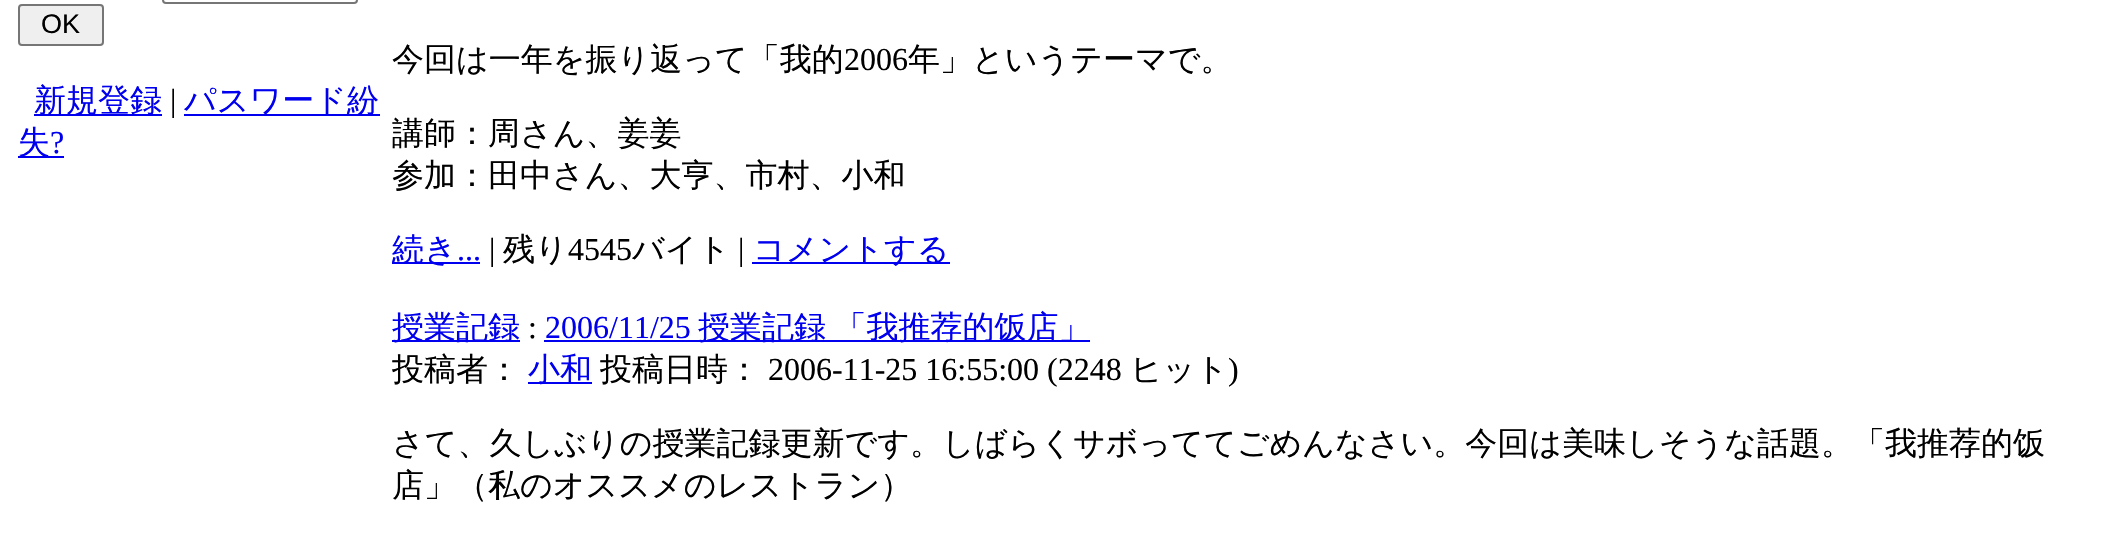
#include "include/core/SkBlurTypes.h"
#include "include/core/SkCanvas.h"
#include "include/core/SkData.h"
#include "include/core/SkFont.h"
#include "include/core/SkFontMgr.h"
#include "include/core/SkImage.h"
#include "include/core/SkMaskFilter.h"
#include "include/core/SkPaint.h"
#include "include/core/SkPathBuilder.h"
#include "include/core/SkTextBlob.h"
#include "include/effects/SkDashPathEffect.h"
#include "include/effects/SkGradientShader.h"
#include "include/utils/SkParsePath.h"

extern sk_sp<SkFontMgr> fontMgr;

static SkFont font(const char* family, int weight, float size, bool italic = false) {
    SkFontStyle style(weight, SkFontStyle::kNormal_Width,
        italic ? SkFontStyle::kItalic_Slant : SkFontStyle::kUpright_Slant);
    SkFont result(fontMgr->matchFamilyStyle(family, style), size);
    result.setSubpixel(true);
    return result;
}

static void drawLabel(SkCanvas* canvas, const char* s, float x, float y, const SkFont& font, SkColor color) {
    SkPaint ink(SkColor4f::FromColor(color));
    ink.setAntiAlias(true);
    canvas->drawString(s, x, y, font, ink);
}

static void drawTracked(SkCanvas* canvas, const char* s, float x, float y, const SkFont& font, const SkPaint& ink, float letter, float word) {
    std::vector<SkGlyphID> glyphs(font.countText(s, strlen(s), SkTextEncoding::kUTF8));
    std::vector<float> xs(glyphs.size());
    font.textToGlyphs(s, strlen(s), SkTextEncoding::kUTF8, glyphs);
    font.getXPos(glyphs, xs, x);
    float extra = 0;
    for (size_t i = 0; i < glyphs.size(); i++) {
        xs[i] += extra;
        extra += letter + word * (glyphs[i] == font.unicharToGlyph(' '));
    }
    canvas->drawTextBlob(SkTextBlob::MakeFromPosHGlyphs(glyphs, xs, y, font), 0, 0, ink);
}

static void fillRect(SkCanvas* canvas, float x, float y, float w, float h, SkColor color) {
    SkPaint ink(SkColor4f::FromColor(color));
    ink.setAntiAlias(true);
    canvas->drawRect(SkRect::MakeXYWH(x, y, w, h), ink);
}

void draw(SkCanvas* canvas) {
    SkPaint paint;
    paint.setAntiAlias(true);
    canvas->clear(0xFFFFFFFF);
    paint.setStroke(true);
    paint.setStrokeWidth(2);
    paint.setColor(0xFF767676);
    canvas->drawRoundRect(SkRect::MakeXYWH(163, -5, 194, 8), 3, 3, paint);
    paint.setStroke(false);
    paint.setColor(0xFFEFEFEF);
    canvas->drawRoundRect(SkRect::MakeXYWH(19, 5, 84, 40), 3, 3, paint);
    paint.setStroke(true);
    paint.setColor(0xFF767676);
    canvas->drawRoundRect(SkRect::MakeXYWH(19, 5, 84, 40), 3, 3, paint);
    SkFont font1 = font("Liberation Sans", 400, 27);
    drawLabel(canvas, "OK", 41, 33, font1, 0xFF000000);
    fillRect(canvas, 34, 114, 128, 2, 0xFF0000EE);
    SkFont font2 = font("WenQuanYi Zen Hei", 500, 32);
    drawLabel(canvas, "新規登録", 34, 111, font2, 0xFF0000EE);
    SkFont font3 = font("Liberation Serif", 400, 32);
    drawLabel(canvas, "|", 170, 111, font3, 0xFF000000);
    fillRect(canvas, 184, 114, 196, 2, 0xFF0000EE);
    drawLabel(canvas, "パスワード紛", 184, 111, font2, 0xFF0000EE);
    fillRect(canvas, 18, 156, 46, 2, 0xFF0000EE);
    drawLabel(canvas, "失", 18, 153, font2, 0xFF0000EE);
    drawLabel(canvas, "?", 50, 153, font3, 0xFF0000EE);
    drawLabel(canvas, "今回は一年を振り返って「我的", 392, 70, font2, 0xFF000000);
    drawLabel(canvas, "2006", 844, 70, font3, 0xFF000000);
    drawLabel(canvas, "年」というテーマで。", 908, 70, font2, 0xFF000000);
    drawLabel(canvas, "講師：周さん、姜姜", 392, 144, font2, 0xFF000000);
    drawLabel(canvas, "参加：田中さん、大亨、市村、小和", 392, 186, font2, 0xFF000000);
    fillRect(canvas, 392, 262, 88, 2, 0xFF0000EE);
    drawLabel(canvas, "続き", 392, 260, font2, 0xFF0000EE);
    drawLabel(canvas, "...", 457, 260, font3, 0xFF0000EE);
    drawLabel(canvas, "|", 489, 260, font3, 0xFF000000);
    drawLabel(canvas, "残り", 503, 260, font2, 0xFF000000);
    drawLabel(canvas, "4545", 568, 260, font3, 0xFF000000);
    drawLabel(canvas, "バイト", 632, 260, font2, 0xFF000000);
    drawLabel(canvas, "|", 738, 260, font3, 0xFF000000);
    fillRect(canvas, 752, 262, 198, 2, 0xFF0000EE);
    drawLabel(canvas, "コメントする", 753, 260, font2, 0xFF0000EE);
    fillRect(canvas, 392, 340, 128, 2, 0xFF0000EE);
    drawLabel(canvas, "授業記録", 392, 338, font2, 0xFF0000EE);
    drawLabel(canvas, ":", 528, 338, font3, 0xFF000000);
    drawLabel(canvas, "2006/11/25", 545, 338, font3, 0xFF0000EE);
    fillRect(canvas, 544, 340, 546, 2, 0xFF0000EE);
    paint.setStroke(false);
    paint.setColor(0xFF0000EE);
    drawTracked(canvas, "授業記録 「我推荐的饭店」", 698, 338, font2, paint, 0, -1);
    drawLabel(canvas, "投稿者：", 392, 380, font2, 0xFF000000);
    fillRect(canvas, 528, 382, 64, 2, 0xFF0000EE);
    drawLabel(canvas, "小和", 528, 380, font2, 0xFF0000EE);
    drawLabel(canvas, "投稿日時：", 600, 380, font2, 0xFF000000);
    drawLabel(canvas, "2006-11-25 16:55:00 (2248", 768, 380, font3, 0xFF000000);
    drawLabel(canvas, "ヒット", 1130, 380, font2, 0xFF000000);
    drawLabel(canvas, ")", 1228, 380, font3, 0xFF000000);
    drawLabel(canvas, "さて、久しぶりの授業記録更新です。しばらくサボっててごめんなさい。今回は美味しそうな話題。「我推荐的饭", 392, 454, font2, 0xFF000000);
    drawLabel(canvas, "店」（私のオススメのレストラン）", 392, 496, font2, 0xFF000000);
}
